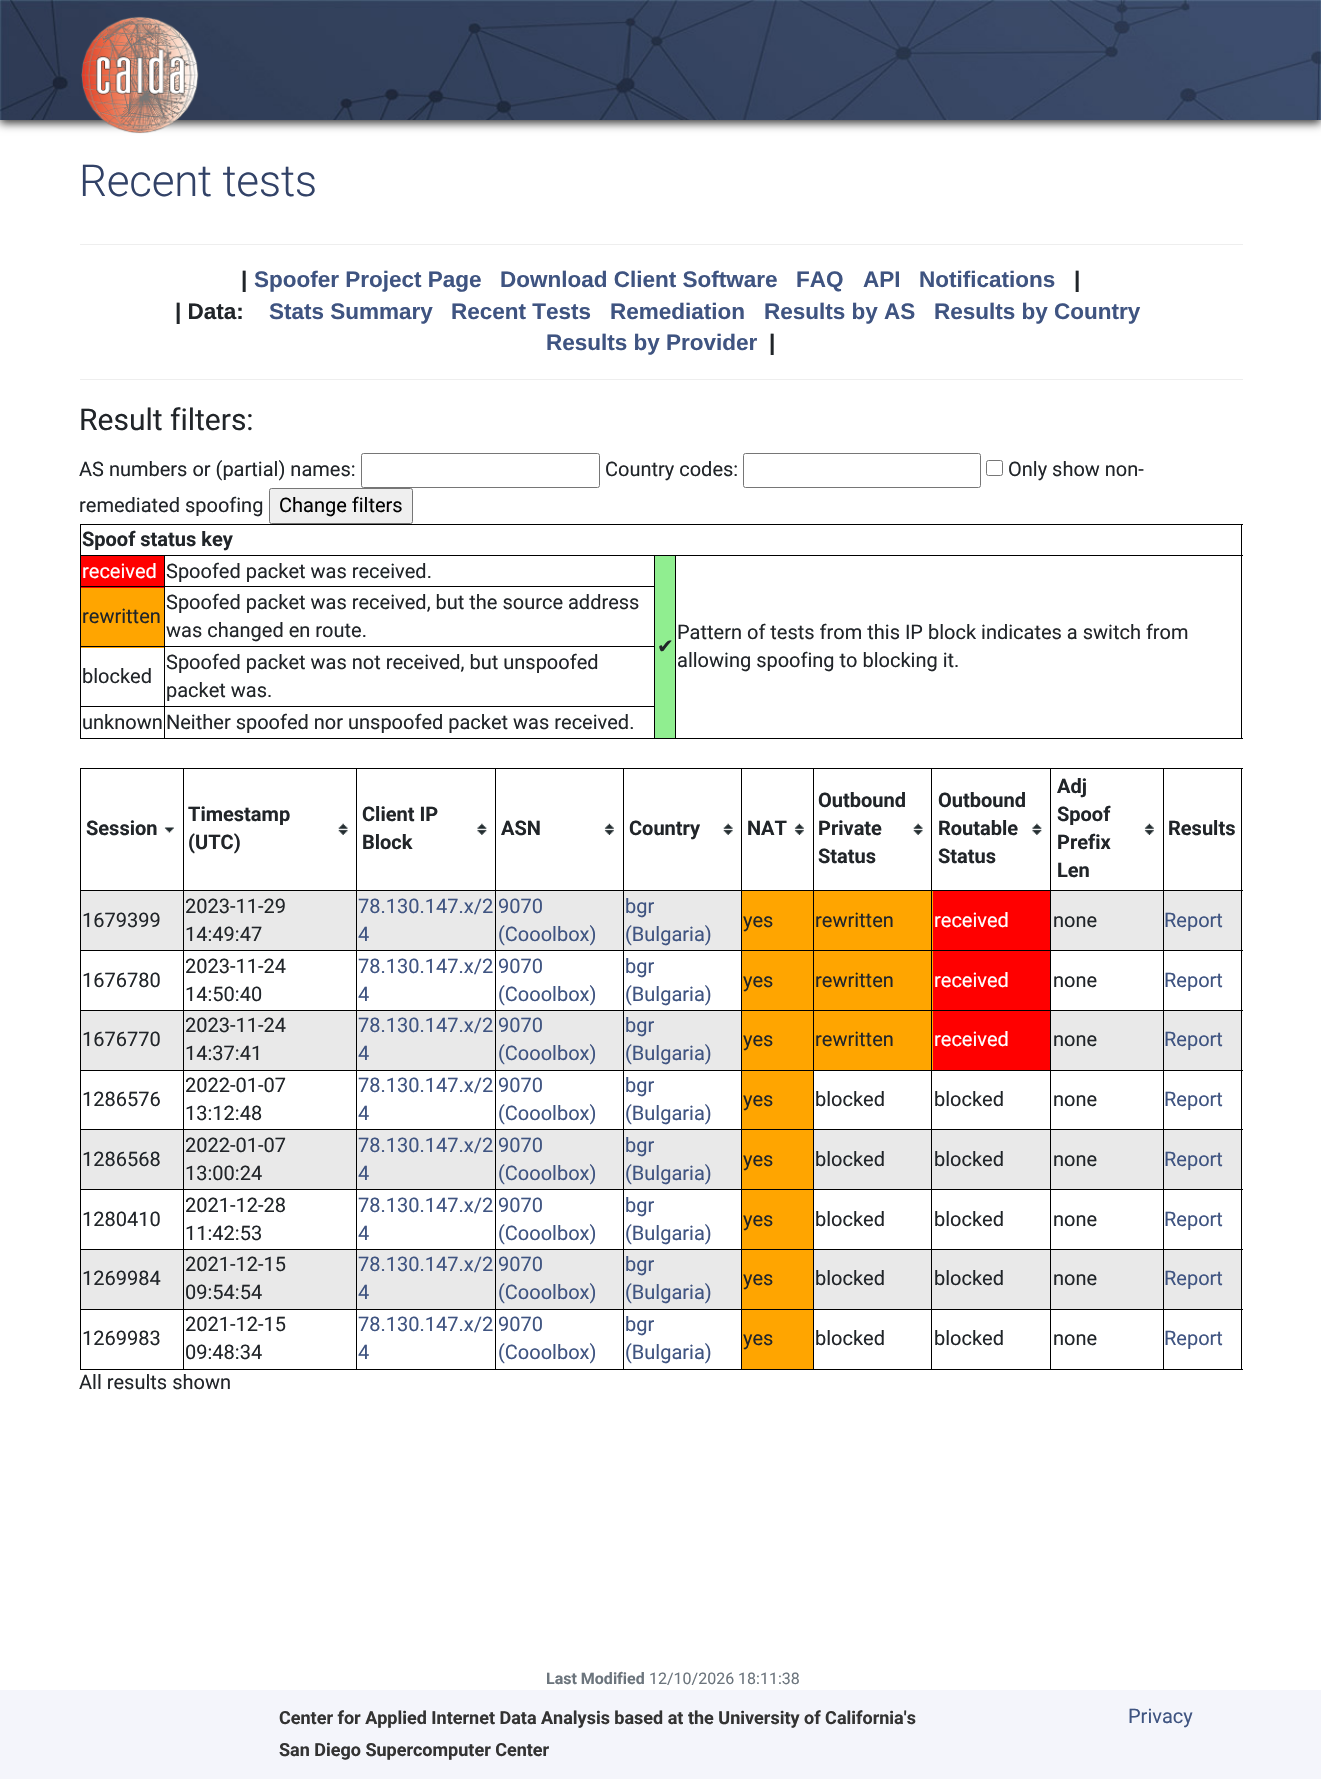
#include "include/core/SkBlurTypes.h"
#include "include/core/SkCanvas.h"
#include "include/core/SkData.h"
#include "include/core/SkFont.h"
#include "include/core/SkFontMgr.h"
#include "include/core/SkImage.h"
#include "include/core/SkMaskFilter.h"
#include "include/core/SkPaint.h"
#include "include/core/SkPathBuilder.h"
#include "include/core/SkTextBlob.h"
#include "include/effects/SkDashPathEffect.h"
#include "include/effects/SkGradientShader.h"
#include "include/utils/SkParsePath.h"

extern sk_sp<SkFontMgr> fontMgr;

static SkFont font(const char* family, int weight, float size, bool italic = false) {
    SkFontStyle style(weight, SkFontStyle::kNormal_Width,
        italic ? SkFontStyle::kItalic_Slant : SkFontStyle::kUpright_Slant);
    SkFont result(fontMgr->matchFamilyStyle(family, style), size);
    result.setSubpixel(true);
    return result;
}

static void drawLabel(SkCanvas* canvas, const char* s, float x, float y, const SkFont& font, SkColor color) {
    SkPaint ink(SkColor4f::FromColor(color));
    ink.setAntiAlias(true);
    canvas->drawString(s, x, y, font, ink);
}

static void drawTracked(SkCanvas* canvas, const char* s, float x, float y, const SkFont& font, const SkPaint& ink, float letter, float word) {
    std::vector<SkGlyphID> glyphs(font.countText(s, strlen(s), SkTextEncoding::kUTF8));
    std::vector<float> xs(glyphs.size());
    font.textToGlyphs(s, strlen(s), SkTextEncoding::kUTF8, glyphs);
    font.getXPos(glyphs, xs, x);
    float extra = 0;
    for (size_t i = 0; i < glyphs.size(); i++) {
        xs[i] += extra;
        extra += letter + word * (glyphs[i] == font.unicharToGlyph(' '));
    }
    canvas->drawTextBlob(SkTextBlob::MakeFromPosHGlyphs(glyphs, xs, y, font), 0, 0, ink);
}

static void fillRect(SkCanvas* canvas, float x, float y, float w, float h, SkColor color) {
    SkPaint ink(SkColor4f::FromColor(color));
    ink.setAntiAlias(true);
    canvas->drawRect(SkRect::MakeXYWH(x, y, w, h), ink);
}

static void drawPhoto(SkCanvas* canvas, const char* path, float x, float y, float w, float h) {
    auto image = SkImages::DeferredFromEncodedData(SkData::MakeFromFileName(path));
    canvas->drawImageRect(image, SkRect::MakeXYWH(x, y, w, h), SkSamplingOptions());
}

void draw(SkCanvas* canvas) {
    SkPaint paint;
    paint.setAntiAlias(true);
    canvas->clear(0xFFFFFFFF);
    paint.setColor(0xFF333333);
    paint.setMaskFilter(SkMaskFilter::MakeBlur(kNormal_SkBlurStyle, 4.5f));
    canvas->drawRect(SkRect::MakeXYWH(0, 3, 1321, 120), paint);
    paint.setMaskFilter(nullptr);
    drawPhoto(canvas, "assets/img1.png", 0, 0, 1321, 120);
    drawPhoto(canvas, "assets/img2.png", 81, 16, 118, 118);
    SkFont font1 = font("Roboto", 300, 44);
    paint.setColor(0xFF324267);
    drawTracked(canvas, "Recent tests", 79, 196, font1, paint, -0.25f, 0);
    fillRect(canvas, 80, 244, 1163, 1, 0xFFEEEEEE);
    fillRect(canvas, 80, 379, 1163, 1, 0xFFEEEEEE);
    SkFont font2 = font("Liberation Sans", 700, 22.5f);
    drawLabel(canvas, "|", 241, 287, font2, 0xFF212529);
    drawLabel(canvas, "Spoofer Project Page", 254, 287, font2, 0xFF3F5481);
    drawLabel(canvas, "Download Client Software", 500, 287, font2, 0xFF3F5481);
    drawLabel(canvas, "FAQ", 796, 287, font2, 0xFF3F5481);
    drawLabel(canvas, "API", 863, 287, font2, 0xFF3F5481);
    drawLabel(canvas, "Notifications", 919, 287, font2, 0xFF3F5481);
    drawLabel(canvas, "|", 1074, 287, font2, 0xFF212529);
    drawLabel(canvas, "| Data:", 175, 319, font2, 0xFF212529);
    drawLabel(canvas, "Stats Summary", 269, 319, font2, 0xFF3F5481);
    drawLabel(canvas, "Recent Tests", 451, 319, font2, 0xFF3F5481);
    drawLabel(canvas, "Remediation", 610, 319, font2, 0xFF3F5481);
    drawLabel(canvas, "Results by AS", 764, 319, font2, 0xFF3F5481);
    drawLabel(canvas, "Results by Country", 934, 319, font2, 0xFF3F5481);
    drawLabel(canvas, "Results by Provider", 546, 350, font2, 0xFF3F5481);
    drawLabel(canvas, "|", 769, 350, font2, 0xFF212529);
    SkFont font3 = font("Roboto", 400, 30);
    drawLabel(canvas, "Result filters:", 79, 430, font3, 0xFF212529);
    SkFont font4 = font("Roboto", 400, 20);
    drawLabel(canvas, "AS numbers or (partial) names:", 79, 476, font4, 0xFF212529);
    paint.setStroke(true);
    paint.setStrokeWidth(1);
    paint.setColor(0xFF767676);
    canvas->drawRoundRect(SkRect::MakeXYWH(361.5f, 453.5f, 238, 34), 2, 2, paint);
    drawLabel(canvas, "Country codes:", 605, 476, font4, 0xFF212529);
    canvas->drawRoundRect(SkRect::MakeXYWH(743.5f, 453.5f, 237, 34), 2, 2, paint);
    canvas->drawRoundRect(SkRect::MakeXYWH(986.5f, 460.5f, 16, 15), 2, 2, paint);
    drawLabel(canvas, "Only show non-", 1008, 476, font4, 0xFF212529);
    drawLabel(canvas, "remediated spoofing", 79, 512, font4, 0xFF212529);
    paint.setStroke(false);
    paint.setColor(0xFFEFEFEF);
    canvas->drawRoundRect(SkRect::MakeXYWH(269.5f, 488.5f, 143, 35), 2, 2, paint);
    paint.setStroke(true);
    paint.setColor(0xFF767676);
    canvas->drawRoundRect(SkRect::MakeXYWH(269.5f, 488.5f, 143, 35), 2, 2, paint);
    drawLabel(canvas, "Change filters", 279, 512, font4, 0xFF000000);
    fillRect(canvas, 80, 524, 1163, 1, 0xFF000000);
    fillRect(canvas, 1241, 524, 1, 215, 0xFF000000);
    fillRect(canvas, 80, 738, 1163, 1, 0xFF000000);
    fillRect(canvas, 80, 524, 1, 215, 0xFF000000);
    SkFont font5 = font("Roboto", 700, 20);
    drawLabel(canvas, "Spoof status key", 82, 546, font5, 0xFF212529);
    fillRect(canvas, 81, 556, 83, 32, 0xFFFF0000);
    fillRect(canvas, 675, 555, 568, 1, 0xFF000000);
    fillRect(canvas, 675, 555, 1, 184, 0xFF000000);
    fillRect(canvas, 654, 555, 22, 1, 0xFF000000);
    fillRect(canvas, 164, 586, 491, 1, 0xFF000000);
    fillRect(canvas, 164, 646, 491, 1, 0xFF000000);
    fillRect(canvas, 164, 706, 491, 1, 0xFF000000);
    fillRect(canvas, 654, 555, 1, 184, 0xFF000000);
    fillRect(canvas, 164, 555, 491, 1, 0xFF000000);
    fillRect(canvas, 81, 588, 83, 60, 0xFFFFA500);
    fillRect(canvas, 164, 706, 1, 33, 0xFF000000);
    fillRect(canvas, 80, 706, 85, 1, 0xFF000000);
    fillRect(canvas, 164, 646, 1, 62, 0xFF000000);
    fillRect(canvas, 80, 646, 85, 1, 0xFF000000);
    fillRect(canvas, 164, 586, 1, 62, 0xFF000000);
    fillRect(canvas, 80, 586, 85, 1, 0xFF000000);
    fillRect(canvas, 164, 555, 1, 33, 0xFF000000);
    fillRect(canvas, 80, 555, 85, 1, 0xFF000000);
    drawLabel(canvas, "received", 82, 578, font4, 0xFFFFFFFF);
    drawLabel(canvas, "Spoofed packet was received.", 166, 578, font4, 0xFF212529);
    fillRect(canvas, 655, 556, 20, 182, 0xFF90EE90);
    SkFont font6 = font("DejaVu Sans", 400, 20);
    drawLabel(canvas, "✔", 657, 653, font6, 0xFF212529);
    drawLabel(canvas, "Pattern of tests from this IP block indicates a switch from", 677, 639, font4, 0xFF212529);
    drawLabel(canvas, "allowing spoofing to blocking it.", 677, 667, font4, 0xFF212529);
    drawLabel(canvas, "rewritten", 82, 623, font4, 0xFF212529);
    drawLabel(canvas, "Spoofed packet was received, but the source address", 166, 609, font4, 0xFF212529);
    drawLabel(canvas, "was changed en route.", 166, 637, font4, 0xFF212529);
    drawLabel(canvas, "blocked", 82, 683, font4, 0xFF212529);
    drawLabel(canvas, "Spoofed packet was not received, but unspoofed", 166, 669, font4, 0xFF212529);
    drawLabel(canvas, "packet was.", 166, 697, font4, 0xFF212529);
    drawLabel(canvas, "unknown", 82, 729, font4, 0xFF212529);
    drawLabel(canvas, "Neither spoofed nor unspoofed packet was received.", 166, 729, font4, 0xFF212529);
    fillRect(canvas, 80, 768, 1163, 1, 0xFF000000);
    fillRect(canvas, 1241, 768, 1, 602, 0xFF000000);
    fillRect(canvas, 80, 1369, 1163, 1, 0xFF000000);
    fillRect(canvas, 80, 768, 1, 602, 0xFF000000);
    drawPhoto(canvas, "assets/img3.png", 164, 827, 10, 6);
    drawLabel(canvas, "Session", 86, 835, font5, 0xFF212529);
    drawPhoto(canvas, "assets/img4.png", 338, 823, 10, 12);
    fillRect(canvas, 1163, 890, 80, 1, 0xFF000000);
    fillRect(canvas, 1163, 950, 80, 1, 0xFF000000);
    fillRect(canvas, 1163, 1010, 80, 1, 0xFF000000);
    fillRect(canvas, 1163, 1070, 80, 1, 0xFF000000);
    fillRect(canvas, 1163, 1129, 80, 1, 0xFF000000);
    fillRect(canvas, 1163, 1189, 80, 1, 0xFF000000);
    fillRect(canvas, 1163, 1249, 80, 1, 0xFF000000);
    fillRect(canvas, 1163, 1309, 80, 1, 0xFF000000);
    fillRect(canvas, 1163, 1309, 1, 61, 0xFF000000);
    fillRect(canvas, 1050, 1309, 114, 1, 0xFF000000);
    fillRect(canvas, 1163, 1249, 1, 61, 0xFF000000);
    fillRect(canvas, 1050, 1249, 114, 1, 0xFF000000);
    fillRect(canvas, 1163, 1189, 1, 61, 0xFF000000);
    fillRect(canvas, 1050, 1189, 114, 1, 0xFF000000);
    fillRect(canvas, 1163, 1129, 1, 61, 0xFF000000);
    fillRect(canvas, 1050, 1129, 114, 1, 0xFF000000);
    fillRect(canvas, 1163, 1070, 1, 60, 0xFF000000);
    fillRect(canvas, 1050, 1070, 114, 1, 0xFF000000);
    fillRect(canvas, 1163, 1010, 1, 61, 0xFF000000);
    fillRect(canvas, 1050, 1010, 114, 1, 0xFF000000);
    fillRect(canvas, 1163, 950, 1, 61, 0xFF000000);
    fillRect(canvas, 1050, 950, 114, 1, 0xFF000000);
    fillRect(canvas, 1163, 890, 1, 61, 0xFF000000);
    fillRect(canvas, 1050, 890, 114, 1, 0xFF000000);
    fillRect(canvas, 1050, 1309, 1, 61, 0xFF000000);
    fillRect(canvas, 931, 1309, 120, 1, 0xFF000000);
    fillRect(canvas, 1050, 1249, 1, 61, 0xFF000000);
    fillRect(canvas, 931, 1249, 120, 1, 0xFF000000);
    fillRect(canvas, 1050, 1189, 1, 61, 0xFF000000);
    fillRect(canvas, 931, 1189, 120, 1, 0xFF000000);
    fillRect(canvas, 1050, 1129, 1, 61, 0xFF000000);
    fillRect(canvas, 931, 1129, 120, 1, 0xFF000000);
    fillRect(canvas, 1050, 1070, 1, 60, 0xFF000000);
    fillRect(canvas, 931, 1070, 120, 1, 0xFF000000);
    fillRect(canvas, 1050, 1010, 1, 61, 0xFF000000);
    fillRect(canvas, 931, 1010, 120, 1, 0xFF000000);
    fillRect(canvas, 1050, 950, 1, 61, 0xFF000000);
    fillRect(canvas, 931, 950, 120, 1, 0xFF000000);
    fillRect(canvas, 1050, 890, 1, 61, 0xFF000000);
    fillRect(canvas, 931, 890, 120, 1, 0xFF000000);
    fillRect(canvas, 814, 891, 119, 59, 0xFFFFA500);
    fillRect(canvas, 814, 951, 119, 59, 0xFFFFA500);
    fillRect(canvas, 814, 1011, 119, 59, 0xFFFFA500);
    fillRect(canvas, 814, 1130, 236, 59, 0xFFE9E9E9);
    fillRect(canvas, 814, 1250, 236, 59, 0xFFE9E9E9);
    fillRect(canvas, 931, 1309, 1, 61, 0xFF000000);
    fillRect(canvas, 813, 1309, 120, 1, 0xFF000000);
    fillRect(canvas, 931, 1249, 1, 61, 0xFF000000);
    fillRect(canvas, 813, 1249, 120, 1, 0xFF000000);
    fillRect(canvas, 931, 1189, 1, 61, 0xFF000000);
    fillRect(canvas, 813, 1189, 120, 1, 0xFF000000);
    fillRect(canvas, 931, 1129, 1, 61, 0xFF000000);
    fillRect(canvas, 813, 1129, 120, 1, 0xFF000000);
    fillRect(canvas, 931, 1070, 1, 60, 0xFF000000);
    fillRect(canvas, 813, 1070, 120, 1, 0xFF000000);
    fillRect(canvas, 931, 1010, 1, 61, 0xFF000000);
    fillRect(canvas, 813, 1010, 120, 1, 0xFF000000);
    fillRect(canvas, 931, 950, 1, 61, 0xFF000000);
    fillRect(canvas, 813, 950, 120, 1, 0xFF000000);
    fillRect(canvas, 931, 890, 1, 61, 0xFF000000);
    fillRect(canvas, 813, 890, 120, 1, 0xFF000000);
    fillRect(canvas, 813, 1309, 1, 61, 0xFF000000);
    fillRect(canvas, 741, 1309, 73, 1, 0xFF000000);
    fillRect(canvas, 813, 1249, 1, 61, 0xFF000000);
    fillRect(canvas, 741, 1249, 73, 1, 0xFF000000);
    fillRect(canvas, 813, 1189, 1, 61, 0xFF000000);
    fillRect(canvas, 741, 1189, 73, 1, 0xFF000000);
    fillRect(canvas, 813, 1129, 1, 61, 0xFF000000);
    fillRect(canvas, 741, 1129, 73, 1, 0xFF000000);
    fillRect(canvas, 813, 1070, 1, 60, 0xFF000000);
    fillRect(canvas, 741, 1070, 73, 1, 0xFF000000);
    fillRect(canvas, 813, 1010, 1, 61, 0xFF000000);
    fillRect(canvas, 741, 1010, 73, 1, 0xFF000000);
    fillRect(canvas, 813, 950, 1, 61, 0xFF000000);
    fillRect(canvas, 741, 950, 73, 1, 0xFF000000);
    fillRect(canvas, 813, 890, 1, 61, 0xFF000000);
    fillRect(canvas, 741, 890, 73, 1, 0xFF000000);
    fillRect(canvas, 741, 1309, 1, 61, 0xFF000000);
    fillRect(canvas, 623, 1309, 120, 1, 0xFF000000);
    fillRect(canvas, 741, 1249, 1, 61, 0xFF000000);
    fillRect(canvas, 623, 1249, 120, 1, 0xFF000000);
    fillRect(canvas, 741, 1189, 1, 61, 0xFF000000);
    fillRect(canvas, 623, 1189, 120, 1, 0xFF000000);
    fillRect(canvas, 741, 1129, 1, 61, 0xFF000000);
    fillRect(canvas, 623, 1129, 120, 1, 0xFF000000);
    fillRect(canvas, 741, 1070, 1, 60, 0xFF000000);
    fillRect(canvas, 623, 1070, 120, 1, 0xFF000000);
    fillRect(canvas, 741, 1010, 1, 61, 0xFF000000);
    fillRect(canvas, 623, 1010, 120, 1, 0xFF000000);
    fillRect(canvas, 741, 950, 1, 61, 0xFF000000);
    fillRect(canvas, 623, 950, 120, 1, 0xFF000000);
    fillRect(canvas, 741, 890, 1, 61, 0xFF000000);
    fillRect(canvas, 623, 890, 120, 1, 0xFF000000);
    fillRect(canvas, 623, 1309, 1, 61, 0xFF000000);
    fillRect(canvas, 495, 1309, 129, 1, 0xFF000000);
    fillRect(canvas, 623, 1249, 1, 61, 0xFF000000);
    fillRect(canvas, 495, 1249, 129, 1, 0xFF000000);
    fillRect(canvas, 623, 1189, 1, 61, 0xFF000000);
    fillRect(canvas, 495, 1189, 129, 1, 0xFF000000);
    fillRect(canvas, 623, 1129, 1, 61, 0xFF000000);
    fillRect(canvas, 495, 1129, 129, 1, 0xFF000000);
    fillRect(canvas, 623, 1070, 1, 60, 0xFF000000);
    fillRect(canvas, 495, 1070, 129, 1, 0xFF000000);
    fillRect(canvas, 623, 1010, 1, 61, 0xFF000000);
    fillRect(canvas, 495, 1010, 129, 1, 0xFF000000);
    fillRect(canvas, 623, 950, 1, 61, 0xFF000000);
    fillRect(canvas, 495, 950, 129, 1, 0xFF000000);
    fillRect(canvas, 623, 890, 1, 61, 0xFF000000);
    fillRect(canvas, 495, 890, 129, 1, 0xFF000000);
    fillRect(canvas, 495, 1309, 1, 61, 0xFF000000);
    fillRect(canvas, 356, 1309, 140, 1, 0xFF000000);
    fillRect(canvas, 495, 1249, 1, 61, 0xFF000000);
    fillRect(canvas, 356, 1249, 140, 1, 0xFF000000);
    fillRect(canvas, 495, 1189, 1, 61, 0xFF000000);
    fillRect(canvas, 356, 1189, 140, 1, 0xFF000000);
    fillRect(canvas, 495, 1129, 1, 61, 0xFF000000);
    fillRect(canvas, 356, 1129, 140, 1, 0xFF000000);
    fillRect(canvas, 495, 1070, 1, 60, 0xFF000000);
    fillRect(canvas, 356, 1070, 140, 1, 0xFF000000);
    fillRect(canvas, 495, 1010, 1, 61, 0xFF000000);
    fillRect(canvas, 356, 1010, 140, 1, 0xFF000000);
    fillRect(canvas, 495, 950, 1, 61, 0xFF000000);
    fillRect(canvas, 356, 950, 140, 1, 0xFF000000);
    fillRect(canvas, 495, 890, 1, 61, 0xFF000000);
    fillRect(canvas, 356, 890, 140, 1, 0xFF000000);
    fillRect(canvas, 356, 1309, 1, 61, 0xFF000000);
    fillRect(canvas, 183, 1309, 175, 1, 0xFF000000);
    fillRect(canvas, 356, 1249, 1, 61, 0xFF000000);
    fillRect(canvas, 183, 1249, 175, 1, 0xFF000000);
    fillRect(canvas, 356, 1189, 1, 61, 0xFF000000);
    fillRect(canvas, 183, 1189, 175, 1, 0xFF000000);
    fillRect(canvas, 356, 1129, 1, 61, 0xFF000000);
    fillRect(canvas, 183, 1129, 175, 1, 0xFF000000);
    fillRect(canvas, 356, 1070, 1, 60, 0xFF000000);
    fillRect(canvas, 183, 1070, 175, 1, 0xFF000000);
    fillRect(canvas, 356, 1010, 1, 61, 0xFF000000);
    fillRect(canvas, 183, 1010, 175, 1, 0xFF000000);
    fillRect(canvas, 356, 950, 1, 61, 0xFF000000);
    fillRect(canvas, 183, 950, 175, 1, 0xFF000000);
    fillRect(canvas, 356, 890, 1, 61, 0xFF000000);
    fillRect(canvas, 183, 890, 175, 1, 0xFF000000);
    fillRect(canvas, 183, 1309, 1, 61, 0xFF000000);
    fillRect(canvas, 80, 1309, 104, 1, 0xFF000000);
    fillRect(canvas, 183, 1249, 1, 61, 0xFF000000);
    fillRect(canvas, 80, 1249, 104, 1, 0xFF000000);
    fillRect(canvas, 183, 1189, 1, 61, 0xFF000000);
    fillRect(canvas, 80, 1189, 104, 1, 0xFF000000);
    fillRect(canvas, 183, 1129, 1, 61, 0xFF000000);
    fillRect(canvas, 80, 1129, 104, 1, 0xFF000000);
    fillRect(canvas, 183, 1070, 1, 60, 0xFF000000);
    fillRect(canvas, 80, 1070, 104, 1, 0xFF000000);
    fillRect(canvas, 183, 1010, 1, 61, 0xFF000000);
    fillRect(canvas, 80, 1010, 104, 1, 0xFF000000);
    fillRect(canvas, 183, 950, 1, 61, 0xFF000000);
    fillRect(canvas, 80, 950, 104, 1, 0xFF000000);
    fillRect(canvas, 183, 890, 1, 61, 0xFF000000);
    fillRect(canvas, 80, 890, 104, 1, 0xFF000000);
    fillRect(canvas, 183, 768, 1, 123, 0xFF000000);
    drawLabel(canvas, "Timestamp", 188, 821, font5, 0xFF212529);
    drawLabel(canvas, "(UTC)", 188, 849, font5, 0xFF212529);
    drawPhoto(canvas, "assets/img5.png", 477, 823, 10, 12);
    fillRect(canvas, 356, 768, 1, 123, 0xFF000000);
    drawLabel(canvas, "Client IP", 362, 821, font5, 0xFF212529);
    drawLabel(canvas, "Block", 362, 849, font5, 0xFF212529);
    drawPhoto(canvas, "assets/img6.png", 604, 823, 10, 12);
    fillRect(canvas, 495, 768, 1, 123, 0xFF000000);
    drawLabel(canvas, "ASN", 501, 835, font5, 0xFF212529);
    drawPhoto(canvas, "assets/img7.png", 723, 823, 10, 12);
    fillRect(canvas, 623, 768, 1, 123, 0xFF000000);
    drawLabel(canvas, "Country", 629, 835, font5, 0xFF212529);
    drawPhoto(canvas, "assets/img6.png", 794, 823, 10, 12);
    fillRect(canvas, 741, 768, 1, 123, 0xFF000000);
    drawLabel(canvas, "NAT", 747, 835, font5, 0xFF212529);
    drawPhoto(canvas, "assets/img4.png", 913, 823, 10, 12);
    fillRect(canvas, 813, 768, 1, 123, 0xFF000000);
    drawLabel(canvas, "Outbound", 818, 807, font5, 0xFF212529);
    drawLabel(canvas, "Private", 818, 835, font5, 0xFF212529);
    drawLabel(canvas, "Status", 818, 863, font5, 0xFF212529);
    drawPhoto(canvas, "assets/img5.png", 1032, 823, 10, 12);
    fillRect(canvas, 931, 768, 1, 123, 0xFF000000);
    drawLabel(canvas, "Outbound", 938, 807, font5, 0xFF212529);
    drawLabel(canvas, "Routable", 938, 835, font5, 0xFF212529);
    drawLabel(canvas, "Status", 938, 863, font5, 0xFF212529);
    drawPhoto(canvas, "assets/img6.png", 1144, 823, 10, 12);
    fillRect(canvas, 1050, 768, 1, 123, 0xFF000000);
    drawLabel(canvas, "Adj", 1057, 793, font5, 0xFF212529);
    drawLabel(canvas, "Spoof", 1057, 821, font5, 0xFF212529);
    drawLabel(canvas, "Prefix", 1057, 849, font5, 0xFF212529);
    drawLabel(canvas, "Len", 1057, 877, font5, 0xFF212529);
    fillRect(canvas, 1163, 768, 1, 123, 0xFF000000);
    drawLabel(canvas, "Results", 1168, 835, font5, 0xFF212529);
    fillRect(canvas, 81, 891, 102, 59, 0xFFE9E9E9);
    drawLabel(canvas, "1679399", 82, 927, font4, 0xFF212529);
    fillRect(canvas, 184, 891, 172, 59, 0xFFE9E9E9);
    drawLabel(canvas, "2023-11-29", 185, 913, font4, 0xFF212529);
    drawLabel(canvas, "14:49:47", 185, 941, font4, 0xFF212529);
    fillRect(canvas, 357, 891, 138, 59, 0xFFE9E9E9);
    drawLabel(canvas, "78.130.147.x/2", 358, 913, font4, 0xFF3F5481);
    drawLabel(canvas, "4", 358, 941, font4, 0xFF3F5481);
    fillRect(canvas, 496, 891, 127, 59, 0xFFE9E9E9);
    drawLabel(canvas, "9070", 498, 913, font4, 0xFF3F5481);
    drawLabel(canvas, "(Cooolbox)", 498, 941, font4, 0xFF3F5481);
    fillRect(canvas, 624, 891, 117, 59, 0xFFE9E9E9);
    drawLabel(canvas, "bgr", 625, 913, font4, 0xFF3F5481);
    drawLabel(canvas, "(Bulgaria)", 625, 941, font4, 0xFF3F5481);
    fillRect(canvas, 742, 891, 71, 59, 0xFFFFA500);
    drawLabel(canvas, "yes", 743, 927, font4, 0xFF212529);
    drawLabel(canvas, "rewritten", 815, 927, font4, 0xFF212529);
    fillRect(canvas, 933, 891, 117, 59, 0xFFFF0000);
    drawLabel(canvas, "received", 934, 927, font4, 0xFFFFFFFF);
    fillRect(canvas, 1051, 891, 112, 59, 0xFFE9E9E9);
    drawLabel(canvas, "none", 1053, 927, font4, 0xFF212529);
    fillRect(canvas, 1164, 891, 77, 59, 0xFFE9E9E9);
    drawLabel(canvas, "Report", 1164, 927, font4, 0xFF3F5481);
    drawLabel(canvas, "1676780", 82, 987, font4, 0xFF212529);
    drawLabel(canvas, "2023-11-24", 185, 973, font4, 0xFF212529);
    drawLabel(canvas, "14:50:40", 185, 1001, font4, 0xFF212529);
    drawLabel(canvas, "78.130.147.x/2", 358, 973, font4, 0xFF3F5481);
    drawLabel(canvas, "4", 358, 1001, font4, 0xFF3F5481);
    drawLabel(canvas, "9070", 498, 973, font4, 0xFF3F5481);
    drawLabel(canvas, "(Cooolbox)", 498, 1001, font4, 0xFF3F5481);
    drawLabel(canvas, "bgr", 625, 973, font4, 0xFF3F5481);
    drawLabel(canvas, "(Bulgaria)", 625, 1001, font4, 0xFF3F5481);
    fillRect(canvas, 742, 951, 71, 59, 0xFFFFA500);
    drawLabel(canvas, "yes", 743, 987, font4, 0xFF212529);
    drawLabel(canvas, "rewritten", 815, 987, font4, 0xFF212529);
    fillRect(canvas, 933, 951, 117, 59, 0xFFFF0000);
    drawLabel(canvas, "received", 934, 987, font4, 0xFFFFFFFF);
    drawLabel(canvas, "none", 1053, 987, font4, 0xFF212529);
    drawLabel(canvas, "Report", 1164, 987, font4, 0xFF3F5481);
    fillRect(canvas, 81, 1011, 102, 59, 0xFFE9E9E9);
    drawLabel(canvas, "1676770", 82, 1046, font4, 0xFF212529);
    fillRect(canvas, 184, 1011, 172, 59, 0xFFE9E9E9);
    drawLabel(canvas, "2023-11-24", 185, 1032, font4, 0xFF212529);
    drawLabel(canvas, "14:37:41", 185, 1060, font4, 0xFF212529);
    fillRect(canvas, 357, 1011, 138, 59, 0xFFE9E9E9);
    drawLabel(canvas, "78.130.147.x/2", 358, 1032, font4, 0xFF3F5481);
    drawLabel(canvas, "4", 358, 1060, font4, 0xFF3F5481);
    fillRect(canvas, 496, 1011, 127, 59, 0xFFE9E9E9);
    drawLabel(canvas, "9070", 498, 1032, font4, 0xFF3F5481);
    drawLabel(canvas, "(Cooolbox)", 498, 1060, font4, 0xFF3F5481);
    fillRect(canvas, 624, 1011, 117, 59, 0xFFE9E9E9);
    drawLabel(canvas, "bgr", 625, 1032, font4, 0xFF3F5481);
    drawLabel(canvas, "(Bulgaria)", 625, 1060, font4, 0xFF3F5481);
    fillRect(canvas, 742, 1011, 71, 59, 0xFFFFA500);
    drawLabel(canvas, "yes", 743, 1046, font4, 0xFF212529);
    drawLabel(canvas, "rewritten", 815, 1046, font4, 0xFF212529);
    fillRect(canvas, 933, 1011, 117, 59, 0xFFFF0000);
    drawLabel(canvas, "received", 934, 1046, font4, 0xFFFFFFFF);
    fillRect(canvas, 1051, 1011, 112, 59, 0xFFE9E9E9);
    drawLabel(canvas, "none", 1053, 1046, font4, 0xFF212529);
    fillRect(canvas, 1164, 1011, 77, 59, 0xFFE9E9E9);
    drawLabel(canvas, "Report", 1164, 1046, font4, 0xFF3F5481);
    drawLabel(canvas, "1286576", 82, 1106, font4, 0xFF212529);
    drawLabel(canvas, "2022-01-07", 185, 1092, font4, 0xFF212529);
    drawLabel(canvas, "13:12:48", 185, 1120, font4, 0xFF212529);
    drawLabel(canvas, "78.130.147.x/2", 358, 1092, font4, 0xFF3F5481);
    drawLabel(canvas, "4", 358, 1120, font4, 0xFF3F5481);
    drawLabel(canvas, "9070", 498, 1092, font4, 0xFF3F5481);
    drawLabel(canvas, "(Cooolbox)", 498, 1120, font4, 0xFF3F5481);
    drawLabel(canvas, "bgr", 625, 1092, font4, 0xFF3F5481);
    drawLabel(canvas, "(Bulgaria)", 625, 1120, font4, 0xFF3F5481);
    fillRect(canvas, 742, 1071, 71, 58, 0xFFFFA500);
    drawLabel(canvas, "yes", 743, 1106, font4, 0xFF212529);
    drawLabel(canvas, "blocked", 815, 1106, font4, 0xFF212529);
    drawLabel(canvas, "blocked", 934, 1106, font4, 0xFF212529);
    drawLabel(canvas, "none", 1053, 1106, font4, 0xFF212529);
    drawLabel(canvas, "Report", 1164, 1106, font4, 0xFF3F5481);
    fillRect(canvas, 81, 1130, 102, 59, 0xFFE9E9E9);
    drawLabel(canvas, "1286568", 82, 1166, font4, 0xFF212529);
    fillRect(canvas, 184, 1130, 172, 59, 0xFFE9E9E9);
    drawLabel(canvas, "2022-01-07", 185, 1152, font4, 0xFF212529);
    drawLabel(canvas, "13:00:24", 185, 1180, font4, 0xFF212529);
    fillRect(canvas, 357, 1130, 138, 59, 0xFFE9E9E9);
    drawLabel(canvas, "78.130.147.x/2", 358, 1152, font4, 0xFF3F5481);
    drawLabel(canvas, "4", 358, 1180, font4, 0xFF3F5481);
    fillRect(canvas, 496, 1130, 127, 59, 0xFFE9E9E9);
    drawLabel(canvas, "9070", 498, 1152, font4, 0xFF3F5481);
    drawLabel(canvas, "(Cooolbox)", 498, 1180, font4, 0xFF3F5481);
    fillRect(canvas, 624, 1130, 117, 59, 0xFFE9E9E9);
    drawLabel(canvas, "bgr", 625, 1152, font4, 0xFF3F5481);
    drawLabel(canvas, "(Bulgaria)", 625, 1180, font4, 0xFF3F5481);
    fillRect(canvas, 742, 1130, 71, 59, 0xFFFFA500);
    drawLabel(canvas, "yes", 743, 1166, font4, 0xFF212529);
    drawLabel(canvas, "blocked", 815, 1166, font4, 0xFF212529);
    drawLabel(canvas, "blocked", 934, 1166, font4, 0xFF212529);
    fillRect(canvas, 1051, 1130, 112, 59, 0xFFE9E9E9);
    drawLabel(canvas, "none", 1053, 1166, font4, 0xFF212529);
    fillRect(canvas, 1164, 1130, 77, 59, 0xFFE9E9E9);
    drawLabel(canvas, "Report", 1164, 1166, font4, 0xFF3F5481);
    drawLabel(canvas, "1280410", 82, 1226, font4, 0xFF212529);
    drawLabel(canvas, "2021-12-28", 185, 1212, font4, 0xFF212529);
    drawLabel(canvas, "11:42:53", 185, 1240, font4, 0xFF212529);
    drawLabel(canvas, "78.130.147.x/2", 358, 1212, font4, 0xFF3F5481);
    drawLabel(canvas, "4", 358, 1240, font4, 0xFF3F5481);
    drawLabel(canvas, "9070", 498, 1212, font4, 0xFF3F5481);
    drawLabel(canvas, "(Cooolbox)", 498, 1240, font4, 0xFF3F5481);
    drawLabel(canvas, "bgr", 625, 1212, font4, 0xFF3F5481);
    drawLabel(canvas, "(Bulgaria)", 625, 1240, font4, 0xFF3F5481);
    fillRect(canvas, 742, 1190, 71, 59, 0xFFFFA500);
    drawLabel(canvas, "yes", 743, 1226, font4, 0xFF212529);
    drawLabel(canvas, "blocked", 815, 1226, font4, 0xFF212529);
    drawLabel(canvas, "blocked", 934, 1226, font4, 0xFF212529);
    drawLabel(canvas, "none", 1053, 1226, font4, 0xFF212529);
    drawLabel(canvas, "Report", 1164, 1226, font4, 0xFF3F5481);
    fillRect(canvas, 81, 1250, 102, 59, 0xFFE9E9E9);
    drawLabel(canvas, "1269984", 82, 1285, font4, 0xFF212529);
    fillRect(canvas, 184, 1250, 172, 59, 0xFFE9E9E9);
    drawLabel(canvas, "2021-12-15", 185, 1271, font4, 0xFF212529);
    drawLabel(canvas, "09:54:54", 185, 1299, font4, 0xFF212529);
    fillRect(canvas, 357, 1250, 138, 59, 0xFFE9E9E9);
    drawLabel(canvas, "78.130.147.x/2", 358, 1271, font4, 0xFF3F5481);
    drawLabel(canvas, "4", 358, 1299, font4, 0xFF3F5481);
    fillRect(canvas, 496, 1250, 127, 59, 0xFFE9E9E9);
    drawLabel(canvas, "9070", 498, 1271, font4, 0xFF3F5481);
    drawLabel(canvas, "(Cooolbox)", 498, 1299, font4, 0xFF3F5481);
    fillRect(canvas, 624, 1250, 117, 59, 0xFFE9E9E9);
    drawLabel(canvas, "bgr", 625, 1271, font4, 0xFF3F5481);
    drawLabel(canvas, "(Bulgaria)", 625, 1299, font4, 0xFF3F5481);
    fillRect(canvas, 742, 1250, 71, 59, 0xFFFFA500);
    drawLabel(canvas, "yes", 743, 1285, font4, 0xFF212529);
    drawLabel(canvas, "blocked", 815, 1285, font4, 0xFF212529);
    drawLabel(canvas, "blocked", 934, 1285, font4, 0xFF212529);
    fillRect(canvas, 1051, 1250, 112, 59, 0xFFE9E9E9);
    drawLabel(canvas, "none", 1053, 1285, font4, 0xFF212529);
    fillRect(canvas, 1164, 1250, 77, 59, 0xFFE9E9E9);
    drawLabel(canvas, "Report", 1164, 1285, font4, 0xFF3F5481);
    drawLabel(canvas, "1269983", 82, 1345, font4, 0xFF212529);
    drawLabel(canvas, "2021-12-15", 185, 1331, font4, 0xFF212529);
    drawLabel(canvas, "09:48:34", 185, 1359, font4, 0xFF212529);
    drawLabel(canvas, "78.130.147.x/2", 358, 1331, font4, 0xFF3F5481);
    drawLabel(canvas, "4", 358, 1359, font4, 0xFF3F5481);
    drawLabel(canvas, "9070", 498, 1331, font4, 0xFF3F5481);
    drawLabel(canvas, "(Cooolbox)", 498, 1359, font4, 0xFF3F5481);
    drawLabel(canvas, "bgr", 625, 1331, font4, 0xFF3F5481);
    drawLabel(canvas, "(Bulgaria)", 625, 1359, font4, 0xFF3F5481);
    fillRect(canvas, 742, 1310, 71, 59, 0xFFFFA500);
    drawLabel(canvas, "yes", 743, 1345, font4, 0xFF212529);
    drawLabel(canvas, "blocked", 815, 1345, font4, 0xFF212529);
    drawLabel(canvas, "blocked", 934, 1345, font4, 0xFF212529);
    drawLabel(canvas, "none", 1053, 1345, font4, 0xFF212529);
    drawLabel(canvas, "Report", 1164, 1345, font4, 0xFF3F5481);
    drawLabel(canvas, "All results shown", 79, 1389, font4, 0xFF212529);
    SkFont font7 = font("Roboto", 700, 16);
    drawLabel(canvas, "Last Modified", 546, 1684, font7, 0xFF6C757D);
    SkFont font8 = font("Roboto", 400, 16);
    drawLabel(canvas, "12/10/2026 18:11:38", 649, 1684, font8, 0xFF6C757D);
    fillRect(canvas, 0, 1690, 1321, 89, 0xFFF4F5FB);
    SkFont font9 = font("Roboto", 700, 18);
    drawLabel(canvas, "Center for Applied Internet Data Analysis based at the University of California's", 279, 1724, font9, 0xFF333333);
    drawLabel(canvas, "San Diego Supercomputer Center", 279, 1756, font9, 0xFF333333);
    drawLabel(canvas, "Privacy", 1128, 1723, font4, 0xFF3F5481);
}
